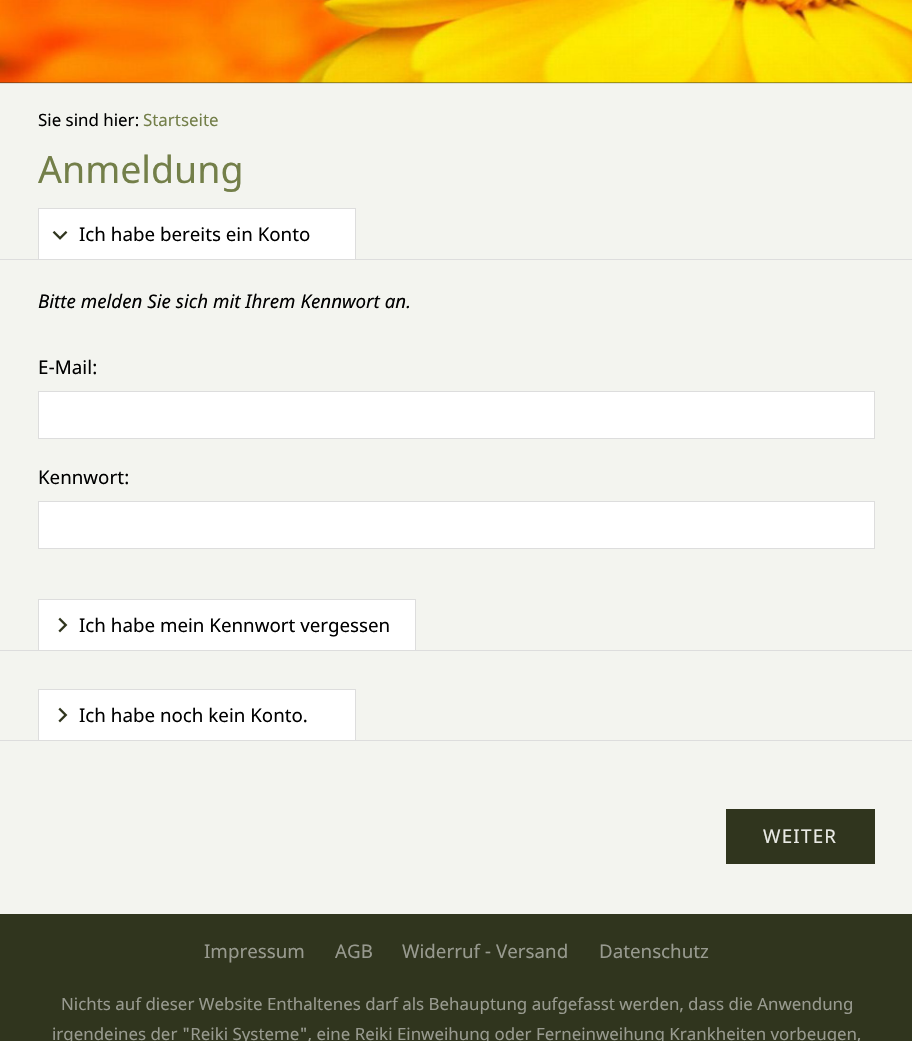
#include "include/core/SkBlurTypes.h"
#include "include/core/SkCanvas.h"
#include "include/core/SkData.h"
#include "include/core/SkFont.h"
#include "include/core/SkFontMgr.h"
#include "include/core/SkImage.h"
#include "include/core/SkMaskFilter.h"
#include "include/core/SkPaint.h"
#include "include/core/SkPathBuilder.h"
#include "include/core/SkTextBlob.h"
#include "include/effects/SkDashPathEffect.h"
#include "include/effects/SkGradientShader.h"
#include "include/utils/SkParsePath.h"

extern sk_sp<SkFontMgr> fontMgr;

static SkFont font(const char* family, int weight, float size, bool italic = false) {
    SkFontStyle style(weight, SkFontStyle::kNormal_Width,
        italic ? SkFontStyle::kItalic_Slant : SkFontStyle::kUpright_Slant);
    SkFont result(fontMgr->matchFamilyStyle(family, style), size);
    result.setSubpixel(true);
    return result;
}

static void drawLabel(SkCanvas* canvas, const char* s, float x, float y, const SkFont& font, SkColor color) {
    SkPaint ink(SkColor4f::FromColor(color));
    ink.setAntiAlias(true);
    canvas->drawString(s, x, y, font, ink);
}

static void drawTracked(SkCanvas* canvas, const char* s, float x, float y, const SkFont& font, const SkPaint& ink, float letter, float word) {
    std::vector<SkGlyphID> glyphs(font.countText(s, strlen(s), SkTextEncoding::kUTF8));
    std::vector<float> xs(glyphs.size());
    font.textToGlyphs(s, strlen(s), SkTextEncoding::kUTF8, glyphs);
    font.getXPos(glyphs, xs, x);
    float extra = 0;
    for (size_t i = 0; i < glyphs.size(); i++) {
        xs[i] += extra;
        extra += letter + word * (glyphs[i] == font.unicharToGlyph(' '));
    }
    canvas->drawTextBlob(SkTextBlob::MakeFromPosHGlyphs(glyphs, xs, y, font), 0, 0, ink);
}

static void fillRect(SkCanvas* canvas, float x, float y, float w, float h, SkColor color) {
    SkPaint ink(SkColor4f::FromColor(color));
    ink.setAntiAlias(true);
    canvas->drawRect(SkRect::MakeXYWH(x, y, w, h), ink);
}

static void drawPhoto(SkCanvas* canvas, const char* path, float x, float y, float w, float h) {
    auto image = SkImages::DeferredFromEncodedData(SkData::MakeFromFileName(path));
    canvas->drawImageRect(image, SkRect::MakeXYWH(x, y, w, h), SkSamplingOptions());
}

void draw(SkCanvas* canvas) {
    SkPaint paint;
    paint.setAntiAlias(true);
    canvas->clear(0xFF30351E);
    fillRect(canvas, 0, 83, 912, 1, 0xFFDCDDD9);
    drawPhoto(canvas, "assets/img1.png", 0, 0, 912, 83);
    fillRect(canvas, 0, 84, 912, 830, 0xFFF3F4EF);
    SkFont font1 = font("Noto Sans", 400, 16.9f);
    drawLabel(canvas, "Sie sind hier:", 38, 126, font1, 0xFF000000);
    drawLabel(canvas, "Startseite", 143, 126, font1, 0xFF737F49);
    SkFont font2 = font("Noto Sans", 400, 37.5f);
    drawLabel(canvas, "Anmeldung", 38, 183, font2, 0xFF737F49);
    fillRect(canvas, 0, 259, 912, 1, 0xFFDDDDDD);
    fillRect(canvas, 39, 209, 316, 50, 0xFFFFFFFF);
    drawPhoto(canvas, "assets/img2.png", 52, 231, 16, 9);
    fillRect(canvas, 38, 208, 318, 1, 0xFFDDDDDD);
    fillRect(canvas, 355, 208, 1, 51, 0xFFDDDDDD);
    fillRect(canvas, 38, 208, 1, 51, 0xFFDDDDDD);
    SkFont font3 = font("Noto Sans", 400, 18.75f);
    drawLabel(canvas, "Ich habe bereits ein Konto", 79, 241, font3, 0xFF000000);
    SkFont font4 = font("Noto Sans", 400, 18.75f, true);
    drawLabel(canvas, "Bitte melden Sie sich mit Ihrem Kennwort an.", 38, 308, font4, 0xFF000000);
    drawLabel(canvas, "E-Mail:", 38, 374, font3, 0xFF000000);
    paint.setColor(0xFFFFFFFF);
    canvas->drawRect(SkRect::MakeXYWH(38.5f, 391.5f, 836, 47), paint);
    paint.setStroke(true);
    paint.setStrokeWidth(1);
    paint.setColor(0xFFDDDDDD);
    canvas->drawRect(SkRect::MakeXYWH(38.5f, 391.5f, 836, 47), paint);
    drawLabel(canvas, "Kennwort:", 38, 484, font3, 0xFF000000);
    paint.setStroke(false);
    paint.setColor(0xFFFFFFFF);
    canvas->drawRect(SkRect::MakeXYWH(38.5f, 501.5f, 836, 47), paint);
    paint.setStroke(true);
    paint.setColor(0xFFDDDDDD);
    canvas->drawRect(SkRect::MakeXYWH(38.5f, 501.5f, 836, 47), paint);
    fillRect(canvas, 0, 650, 912, 1, 0xFFDDDDDD);
    fillRect(canvas, 39, 600, 376, 50, 0xFFFFFFFF);
    drawPhoto(canvas, "assets/img3.png", 58, 617, 10, 16);
    fillRect(canvas, 38, 599, 378, 1, 0xFFDDDDDD);
    fillRect(canvas, 415, 599, 1, 51, 0xFFDDDDDD);
    fillRect(canvas, 38, 599, 1, 51, 0xFFDDDDDD);
    drawLabel(canvas, "Ich habe mein Kennwort vergessen", 79, 632, font3, 0xFF000000);
    fillRect(canvas, 0, 740, 912, 1, 0xFFDDDDDD);
    fillRect(canvas, 39, 690, 316, 50, 0xFFFFFFFF);
    drawPhoto(canvas, "assets/img3.png", 58, 707, 10, 16);
    fillRect(canvas, 38, 689, 318, 1, 0xFFDDDDDD);
    fillRect(canvas, 355, 689, 1, 51, 0xFFDDDDDD);
    fillRect(canvas, 38, 689, 1, 51, 0xFFDDDDDD);
    drawLabel(canvas, "Ich habe noch kein Konto.", 79, 722, font3, 0xFF000000);
    fillRect(canvas, 726, 809, 149, 55, 0xFF30351E);
    paint.setStroke(false);
    paint.setColor(0xFFE9EAE5);
    drawTracked(canvas, "WEITER", 763, 843, font3, paint, 1.25f, 0);
    drawLabel(canvas, "Impressum", 204, 958, font3, 0xFF989A8F);
    drawLabel(canvas, "AGB", 335, 958, font3, 0xFF989A8F);
    drawLabel(canvas, "Widerruf - Versand", 402, 958, font3, 0xFF989A8F);
    drawLabel(canvas, "Datenschutz", 599, 958, font3, 0xFF989A8F);
    drawLabel(canvas, "Nichts auf dieser Website Enthaltenes darf als Behauptung aufgefasst werden, dass die Anwendung", 61, 1010, font1, 0xFF989A8F);
    drawLabel(canvas, "irgendeines der \"Reiki Systeme\", eine Reiki Einweihung oder Ferneinweihung Krankheiten vorbeugen,", 52, 1040, font1, 0xFF989A8F);
}
